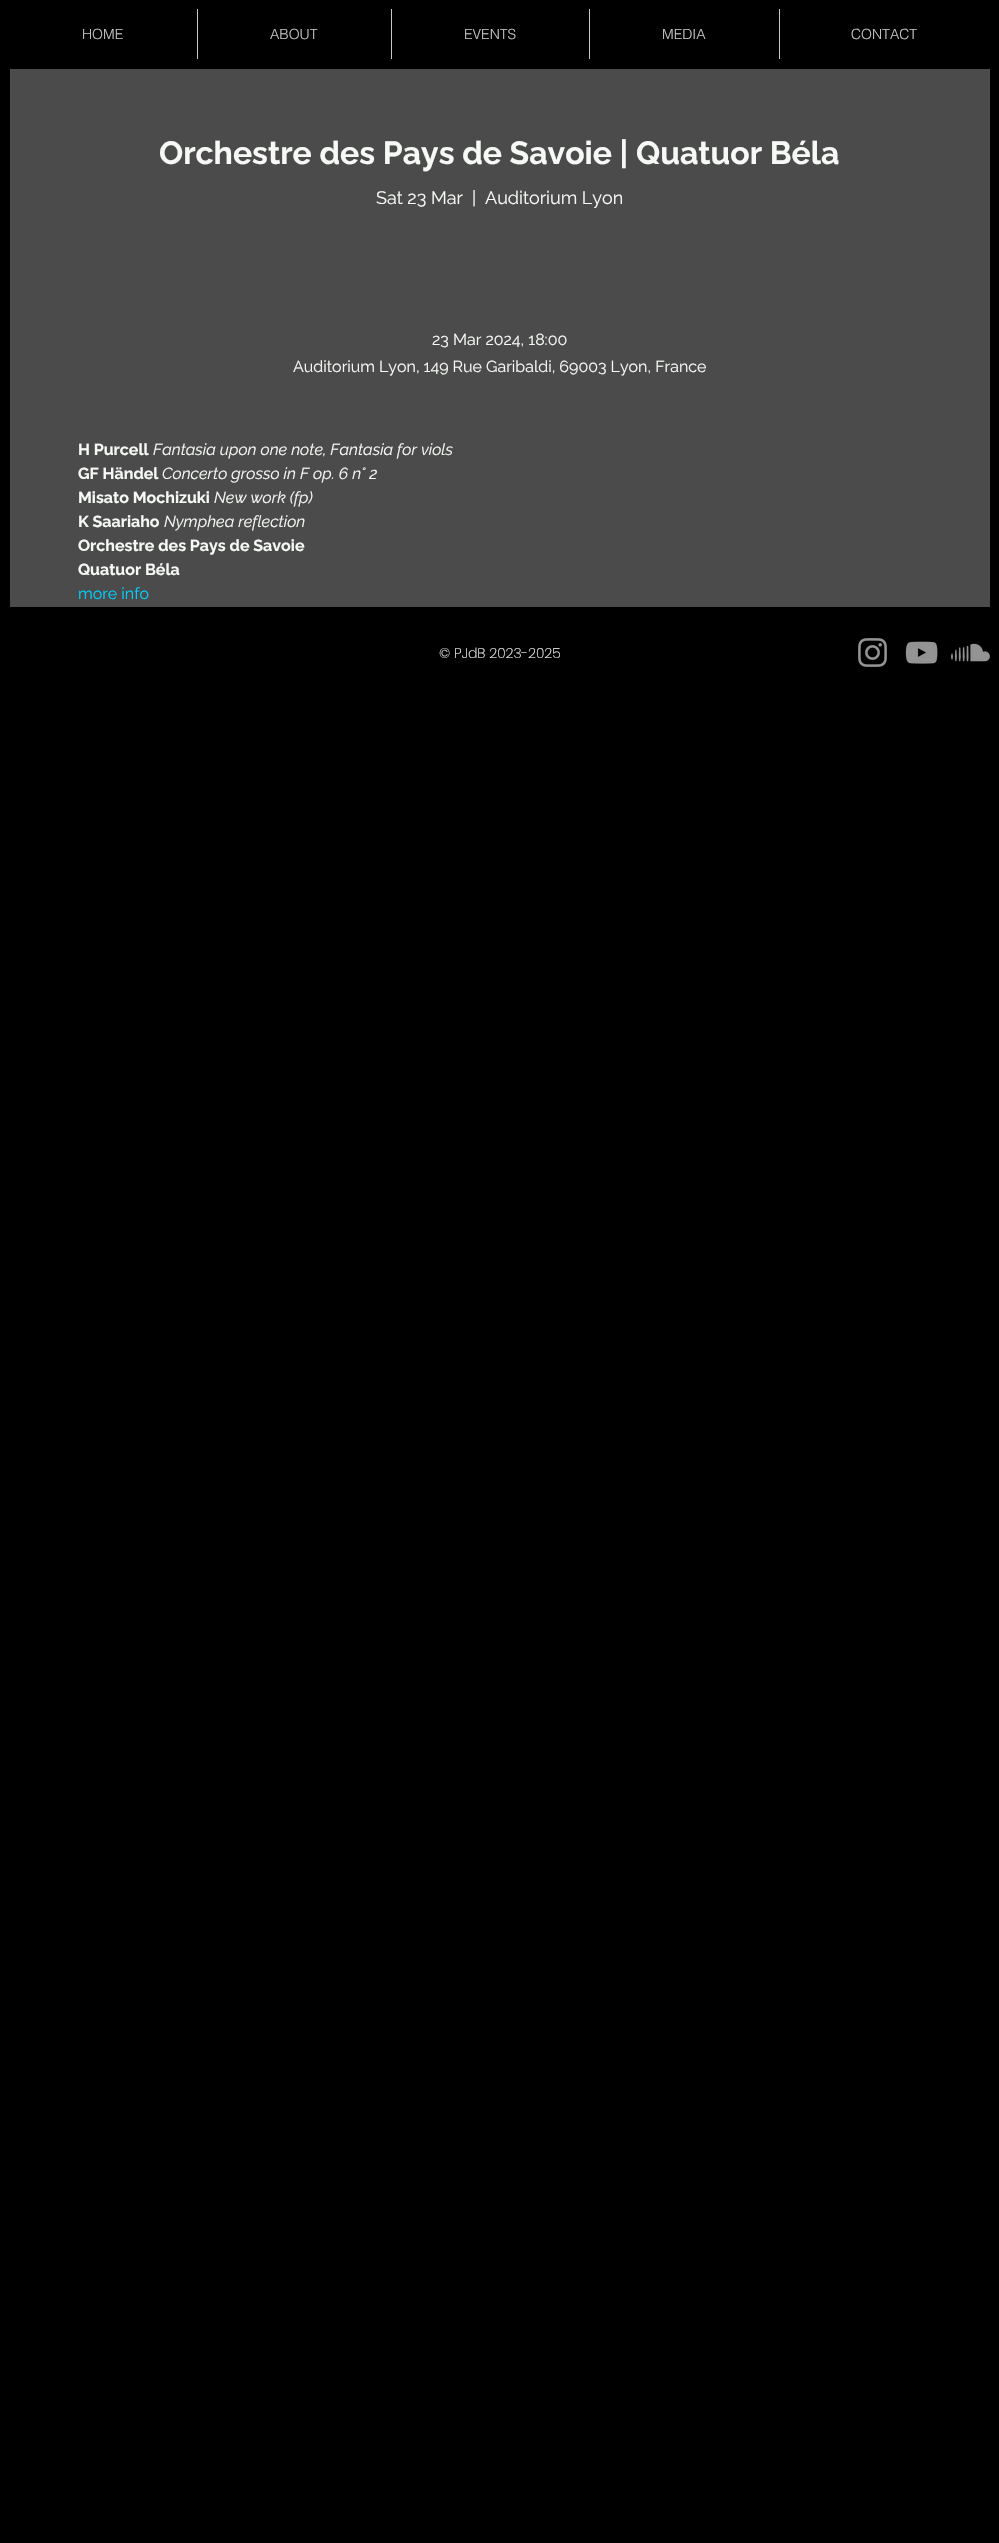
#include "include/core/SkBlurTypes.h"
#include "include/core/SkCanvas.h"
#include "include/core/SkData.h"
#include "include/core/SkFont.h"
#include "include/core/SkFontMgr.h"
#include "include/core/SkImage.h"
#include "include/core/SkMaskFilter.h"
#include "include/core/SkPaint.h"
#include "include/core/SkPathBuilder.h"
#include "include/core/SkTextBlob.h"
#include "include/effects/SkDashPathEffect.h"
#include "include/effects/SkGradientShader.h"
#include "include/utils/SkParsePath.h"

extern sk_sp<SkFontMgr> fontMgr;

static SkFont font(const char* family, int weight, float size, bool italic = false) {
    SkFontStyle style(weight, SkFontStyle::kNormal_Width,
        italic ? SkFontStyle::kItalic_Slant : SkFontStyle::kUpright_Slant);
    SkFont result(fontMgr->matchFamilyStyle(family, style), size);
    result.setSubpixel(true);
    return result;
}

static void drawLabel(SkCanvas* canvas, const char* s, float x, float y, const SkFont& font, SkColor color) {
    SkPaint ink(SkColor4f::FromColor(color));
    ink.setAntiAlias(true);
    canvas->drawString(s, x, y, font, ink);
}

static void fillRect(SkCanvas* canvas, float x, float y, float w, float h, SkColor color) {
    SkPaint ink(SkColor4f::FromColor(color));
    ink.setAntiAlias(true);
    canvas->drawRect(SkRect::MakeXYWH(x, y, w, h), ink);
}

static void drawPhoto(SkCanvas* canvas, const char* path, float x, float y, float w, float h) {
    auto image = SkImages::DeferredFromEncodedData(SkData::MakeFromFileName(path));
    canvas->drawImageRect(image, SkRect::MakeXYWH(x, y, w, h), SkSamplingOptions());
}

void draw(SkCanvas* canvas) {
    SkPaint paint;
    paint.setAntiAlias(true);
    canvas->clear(0xFF000000);
    SkFont font1 = font("helvetica", 300, 14);
    drawLabel(canvas, "HOME", 82, 39, font1, 0xFFC5C7C4);
    fillRect(canvas, 197, 9, 1, 50, 0xFFC5C7C4);
    drawLabel(canvas, "ABOUT", 270, 39, font1, 0xFFC5C7C4);
    fillRect(canvas, 391, 9, 1, 50, 0xFFC5C7C4);
    drawLabel(canvas, "EVENTS", 464, 39, font1, 0xFFC5C7C4);
    fillRect(canvas, 589, 9, 1, 50, 0xFFC5C7C4);
    drawLabel(canvas, "MEDIA", 662, 39, font1, 0xFFC5C7C4);
    fillRect(canvas, 779, 9, 1, 50, 0xFFC5C7C4);
    drawLabel(canvas, "CONTACT", 851, 39, font1, 0xFFC5C7C4);
    fillRect(canvas, 10, 69, 980, 538, 0xFF4A4B4A);
    SkFont font2 = font("Raleway", 700, 32);
    drawLabel(canvas, "Orchestre des Pays de Savoie | Quatuor Béla", 159, 164, font2, 0xFFF6F9F5);
    SkFont font3 = font("Raleway", 400, 18);
    drawLabel(canvas, "Sat 23 Mar", 376, 204, font3, 0xFFF6F9F5);
    drawLabel(canvas, "|", 472, 204, font3, 0xFFF6F9F5);
    drawLabel(canvas, "Auditorium Lyon", 485, 204, font3, 0xFFF6F9F5);
    SkFont font4 = font("Raleway", 400, 16);
    drawLabel(canvas, "23 Mar 2024, 18:00", 432, 345, font4, 0xFFF6F9F5);
    drawLabel(canvas, "Auditorium Lyon, 149 Rue Garibaldi, 69003 Lyon, France", 293, 372, font4, 0xFFF6F9F5);
    SkFont font5 = font("Raleway", 700, 16);
    drawLabel(canvas, "H Purcell", 78, 455, font5, 0xFFF6F9F5);
    SkFont font6 = font("Raleway", 400, 16, true);
    drawLabel(canvas, "Fantasia upon one note, Fantasia for viols", 153, 455, font6, 0xFFF6F9F5);
    drawLabel(canvas, "GF Händel", 78, 479, font5, 0xFFF6F9F5);
    drawLabel(canvas, "Concerto grosso in F op. 6 n° 2", 162, 479, font6, 0xFFF6F9F5);
    drawLabel(canvas, "Misato Mochizuki", 78, 503, font5, 0xFFF6F9F5);
    drawLabel(canvas, "New work (fp)", 214, 503, font6, 0xFFF6F9F5);
    drawLabel(canvas, "K Saariaho", 78, 527, font5, 0xFFF6F9F5);
    drawLabel(canvas, "Nymphea reflection", 164, 527, font6, 0xFFF6F9F5);
    drawLabel(canvas, "Orchestre des Pays de Savoie", 78, 551, font5, 0xFFF6F9F5);
    drawLabel(canvas, "Quatuor Béla", 78, 575, font5, 0xFFF6F9F5);
    drawLabel(canvas, "more info", 78, 599, font4, 0xFF00D1FF);
    SkFont font7 = font("Poppins", 200, 14);
    drawLabel(canvas, "© PJdB 2023-2025", 439, 658, font7, 0xFFF6F9F5);
    drawPhoto(canvas, "assets/img1.png", 858, 638, 29, 29);
    drawPhoto(canvas, "assets/img2.png", 905, 641, 33, 23);
    drawPhoto(canvas, "assets/img3.png", 951, 643, 39, 19);
}
